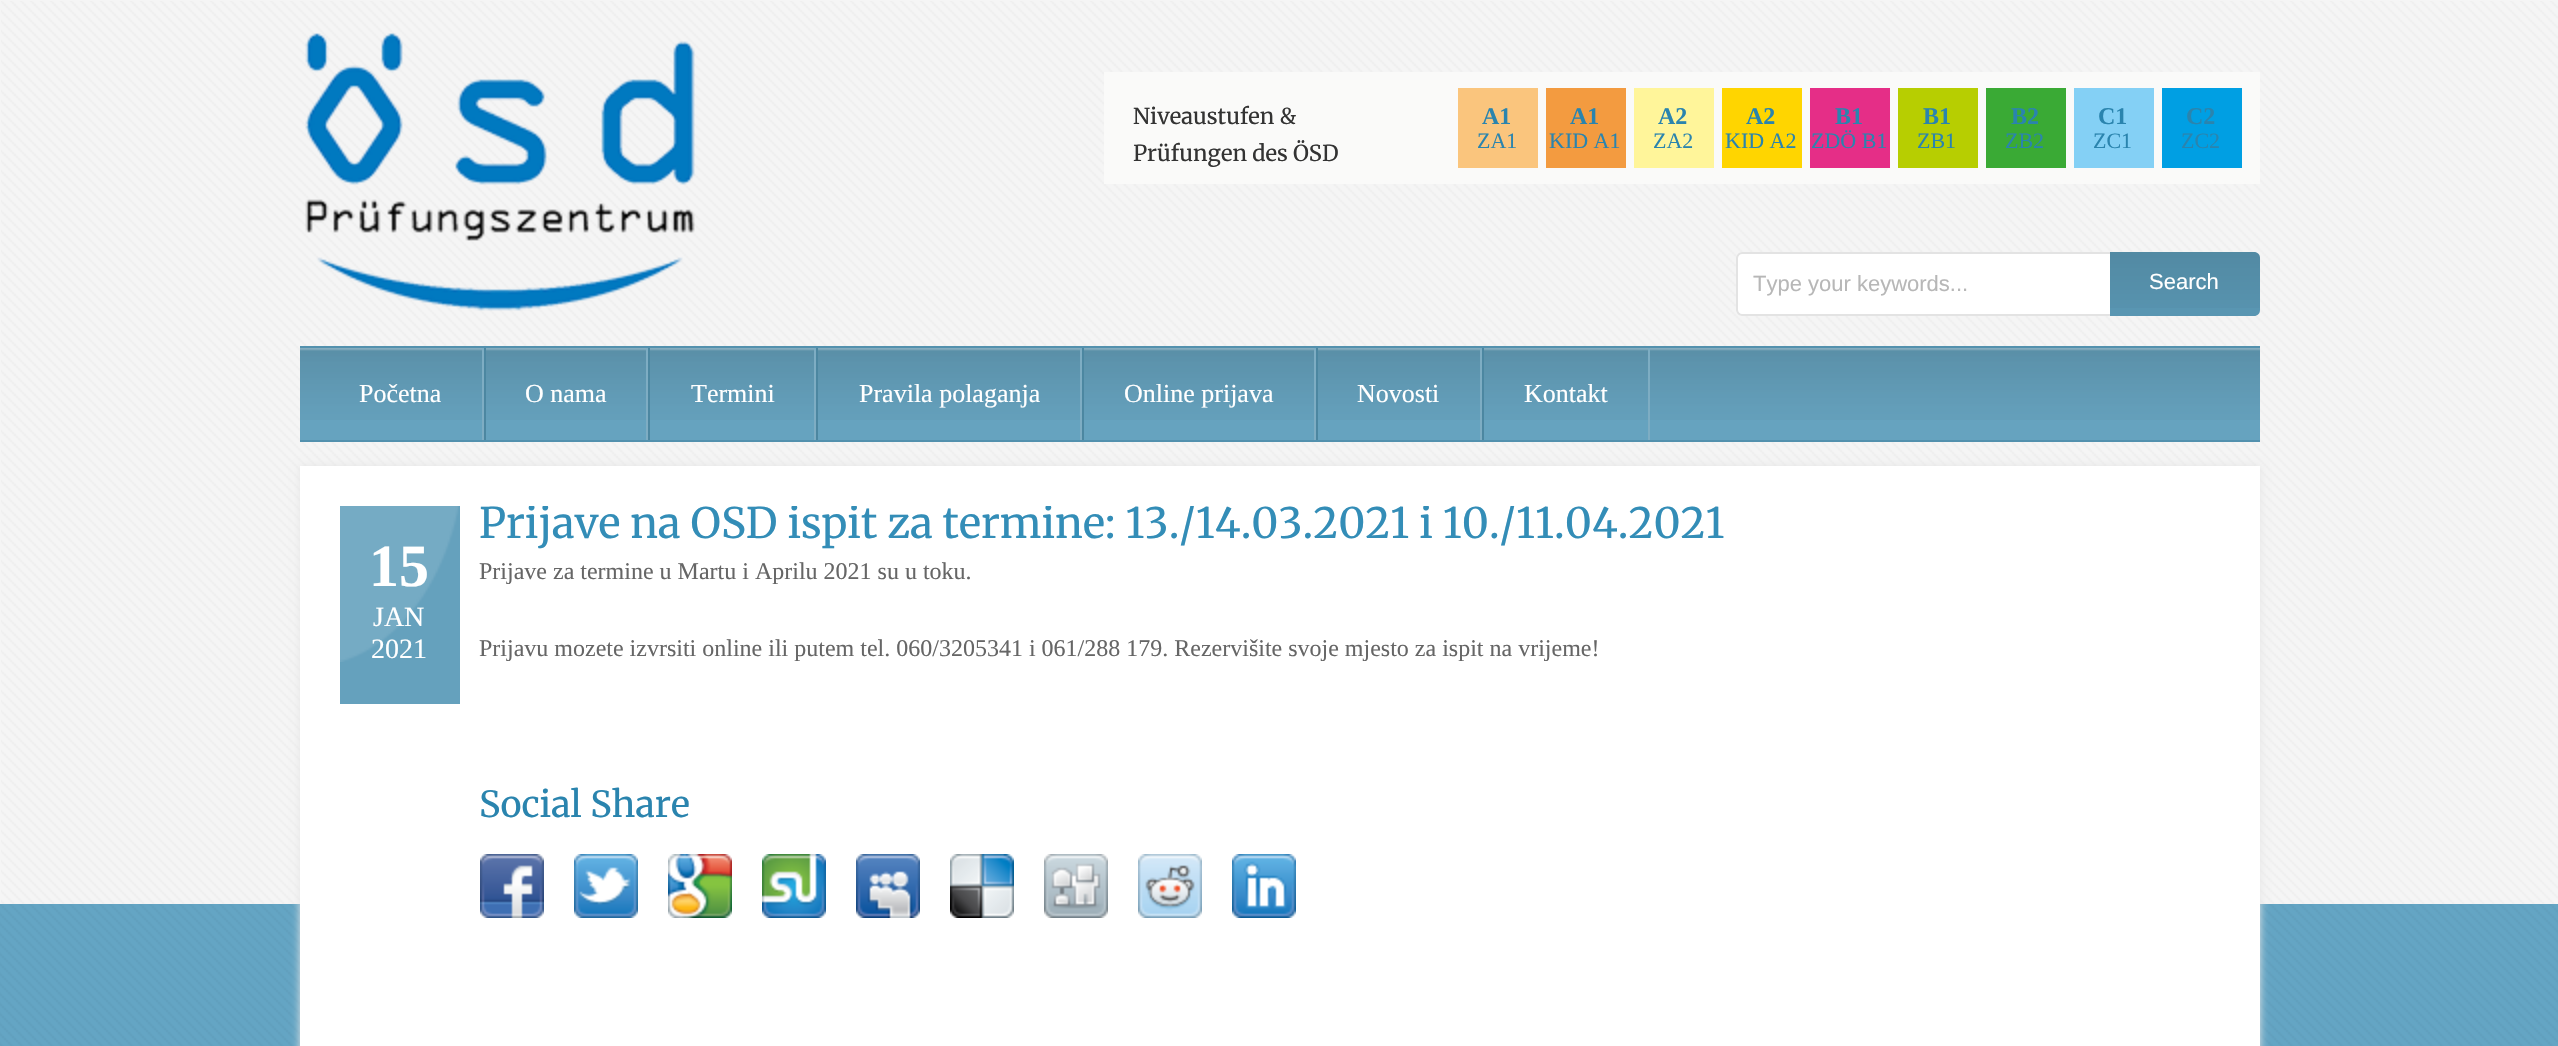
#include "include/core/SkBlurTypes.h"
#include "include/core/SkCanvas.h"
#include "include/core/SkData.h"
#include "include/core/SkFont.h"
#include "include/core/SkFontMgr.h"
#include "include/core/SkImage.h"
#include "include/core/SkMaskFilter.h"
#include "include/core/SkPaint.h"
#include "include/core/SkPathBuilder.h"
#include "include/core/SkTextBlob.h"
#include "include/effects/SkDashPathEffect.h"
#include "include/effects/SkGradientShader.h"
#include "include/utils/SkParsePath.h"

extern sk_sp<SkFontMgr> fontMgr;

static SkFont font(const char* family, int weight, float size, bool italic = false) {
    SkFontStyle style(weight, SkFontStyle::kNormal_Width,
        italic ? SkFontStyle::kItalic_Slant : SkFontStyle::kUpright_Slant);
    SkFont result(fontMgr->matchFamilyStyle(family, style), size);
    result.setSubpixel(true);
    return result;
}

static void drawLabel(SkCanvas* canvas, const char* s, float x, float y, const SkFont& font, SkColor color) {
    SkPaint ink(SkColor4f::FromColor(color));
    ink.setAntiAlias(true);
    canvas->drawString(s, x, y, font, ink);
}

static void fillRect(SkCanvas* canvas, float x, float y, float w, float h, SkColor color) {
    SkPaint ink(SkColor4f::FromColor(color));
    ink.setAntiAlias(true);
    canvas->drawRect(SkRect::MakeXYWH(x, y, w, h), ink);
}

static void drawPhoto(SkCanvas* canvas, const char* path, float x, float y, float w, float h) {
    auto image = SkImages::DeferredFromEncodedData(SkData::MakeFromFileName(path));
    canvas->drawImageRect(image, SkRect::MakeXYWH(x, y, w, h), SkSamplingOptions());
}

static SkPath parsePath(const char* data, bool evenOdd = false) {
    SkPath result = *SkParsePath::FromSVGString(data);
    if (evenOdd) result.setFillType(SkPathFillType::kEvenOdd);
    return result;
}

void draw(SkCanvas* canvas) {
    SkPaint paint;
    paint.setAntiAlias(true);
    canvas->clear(0xFFF5F5F5);
    drawPhoto(canvas, "assets/img1.png", 1, 1, 2557, 903);
    drawPhoto(canvas, "assets/img2.png", 305, 33, 390, 278);
    fillRect(canvas, 1104, 72, 1156, 112, 0xFFFAFAF9);
    SkFont font1 = font("Merriweather", 400, 22);
    drawLabel(canvas, "Niveaustufen &", 1133, 124, font1, 0xFF333333);
    drawLabel(canvas, "Prüfungen des ÖSD", 1133, 161, font1, 0xFF333333);
    fillRect(canvas, 1458, 88, 80, 80, 0xFFFAC57D);
    SkFont font2 = font("Liberation Serif", 700, 24);
    drawLabel(canvas, "A1", 1482, 124, font2, 0xFF2A84AE);
    SkFont font3 = font("Liberation Serif", 400, 22);
    drawLabel(canvas, "ZA1", 1477, 148, font3, 0xFF2A84AE);
    fillRect(canvas, 1546, 88, 80, 80, 0xFFF39B40);
    drawLabel(canvas, "A1", 1570, 124, font2, 0xFF2A84AE);
    drawLabel(canvas, "KID A1", 1549, 148, font3, 0xFF2A84AE);
    fillRect(canvas, 1634, 88, 80, 80, 0xFFFFF59A);
    drawLabel(canvas, "A2", 1658, 124, font2, 0xFF2A84AE);
    drawLabel(canvas, "ZA2", 1653, 148, font3, 0xFF2A84AE);
    fillRect(canvas, 1722, 88, 80, 80, 0xFFFFD500);
    drawLabel(canvas, "A2", 1746, 124, font2, 0xFF2A84AE);
    drawLabel(canvas, "KID A2", 1725, 148, font3, 0xFF2A84AE);
    fillRect(canvas, 1810, 88, 80, 80, 0xFFE52E87);
    drawLabel(canvas, "B1", 1835, 124, font2, 0xFF2A84AE);
    drawLabel(canvas, "ZDÖ B1", 1811, 148, font3, 0xFF2A84AE);
    fillRect(canvas, 1898, 88, 80, 80, 0xFFB7CE01);
    drawLabel(canvas, "B1", 1923, 124, font2, 0xFF2A84AE);
    drawLabel(canvas, "ZB1", 1917, 148, font3, 0xFF2A84AE);
    fillRect(canvas, 1986, 88, 80, 80, 0xFF3AAA35);
    drawLabel(canvas, "B2", 2011, 124, font2, 0xFF2A84AE);
    drawLabel(canvas, "ZB2", 2005, 148, font3, 0xFF2A84AE);
    fillRect(canvas, 2074, 88, 80, 80, 0xFF84D0F5);
    drawLabel(canvas, "C1", 2098, 124, font2, 0xFF2A84AE);
    drawLabel(canvas, "ZC1", 2093, 148, font3, 0xFF2A84AE);
    fillRect(canvas, 2162, 88, 80, 80, 0xFF009FE3);
    drawLabel(canvas, "C2", 2186, 124, font2, 0xFF2A84AE);
    drawLabel(canvas, "ZC2", 2181, 148, font3, 0xFF2A84AE);
    paint.setColor(0xFFFFFFFF);
    canvas->drawPath(parsePath("M1742 252H2110V316H1742C1738.5 316 1736 313.5 1736 310V258C1736 254.5 1738.5 252 1742 252Z"), paint);
    paint.setColor(0xFFE3E3E3);
    canvas->drawPath(parsePath("M1742 252H2110V316H1742C1739 316 1736 313 1736 310V258C1736 255 1739 252 1742 252ZM1742 254H2110V314H1742C1740 314 1738 312 1738 310V258C1738 256 1740 254 1742 254Z", true), paint);
    SkFont font4 = font("Liberation Sans", 400, 22);
    drawLabel(canvas, "Type your keywords...", 1753, 291, font4, 0xFFB7B7B7);
    paint.setColor(0xFF5996B2);
    canvas->drawPath(parsePath("M2110 252H2254C2257.5 252 2260 254.5 2260 258V310C2260 313.5 2257.5 316 2254 316H2110Z"), paint);
    drawPhoto(canvas, "assets/img3.png", 2110, 252, 150, 56);
    drawLabel(canvas, "Search", 2149, 289, font4, 0xFFFFFFFF);
    fillRect(canvas, 300, 348, 1960, 92, 0xFF66A3BF);
    drawPhoto(canvas, "assets/img4.png", 300, 348, 1960, 72);
    fillRect(canvas, 300, 346, 1960, 2, 0xFF5391AE);
    fillRect(canvas, 300, 440, 1960, 2, 0xFF5391AE);
    fillRect(canvas, 320, 348, 162, 72, 0xFF66A3BF);
    drawPhoto(canvas, "assets/img5.png", 320, 348, 162, 72);
    fillRect(canvas, 482, 348, 2, 92, 0xFF7EADC3);
    SkFont font5 = font("Liberation Serif", 400, 26);
    drawLabel(canvas, "Početna", 359, 402, font5, 0xFFFFFFFF);
    fillRect(canvas, 486, 348, 160, 72, 0xFF66A3BF);
    drawPhoto(canvas, "assets/img6.png", 486, 348, 160, 72);
    fillRect(canvas, 646, 348, 2, 92, 0xFF7EADC3);
    fillRect(canvas, 484, 348, 2, 92, 0xFF4C87A1);
    drawLabel(canvas, "O nama", 525, 402, font5, 0xFFFFFFFF);
    fillRect(canvas, 650, 348, 164, 72, 0xFF66A3BF);
    drawPhoto(canvas, "assets/img7.png", 650, 348, 164, 72);
    fillRect(canvas, 814, 348, 2, 92, 0xFF7EADC3);
    fillRect(canvas, 648, 348, 2, 92, 0xFF4C87A1);
    drawLabel(canvas, "Termini", 691, 402, font5, 0xFFFFFFFF);
    fillRect(canvas, 818, 348, 262, 72, 0xFF66A3BF);
    drawPhoto(canvas, "assets/img8.png", 818, 348, 262, 72);
    fillRect(canvas, 1080, 348, 2, 92, 0xFF7EADC3);
    fillRect(canvas, 816, 348, 2, 92, 0xFF4C87A1);
    drawLabel(canvas, "Pravila polaganja", 859, 402, font5, 0xFFFFFFFF);
    fillRect(canvas, 1084, 348, 230, 72, 0xFF66A3BF);
    drawPhoto(canvas, "assets/img9.png", 1084, 348, 230, 72);
    fillRect(canvas, 1314, 348, 2, 92, 0xFF7EADC3);
    fillRect(canvas, 1082, 348, 2, 92, 0xFF4C87A1);
    drawLabel(canvas, "Online prijava", 1124, 402, font5, 0xFFFFFFFF);
    fillRect(canvas, 1318, 348, 162, 72, 0xFF66A3BF);
    drawPhoto(canvas, "assets/img5.png", 1318, 348, 162, 72);
    fillRect(canvas, 1480, 348, 2, 92, 0xFF7EADC3);
    fillRect(canvas, 1316, 348, 2, 92, 0xFF4C87A1);
    drawLabel(canvas, "Novosti", 1357, 402, font5, 0xFFFFFFFF);
    fillRect(canvas, 1484, 348, 164, 72, 0xFF66A3BF);
    drawPhoto(canvas, "assets/img7.png", 1484, 348, 164, 72);
    fillRect(canvas, 1648, 348, 2, 92, 0xFF7EADC3);
    fillRect(canvas, 1482, 348, 2, 92, 0xFF4C87A1);
    drawLabel(canvas, "Kontakt", 1524, 402, font5, 0xFFFFFFFF);
    fillRect(canvas, 0, 904, 2558, 142, 0xFF64A5C4);
    drawPhoto(canvas, "assets/img20.png", 0, 904, 2558, 142);
    paint.setColor(0xFFE5E5E5);
    paint.setMaskFilter(SkMaskFilter::MakeBlur(kNormal_SkBlurStyle, 4));
    canvas->drawRect(SkRect::MakeXYWH(300, 466, 1960, 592), paint);
    paint.setMaskFilter(nullptr);
    fillRect(canvas, 300, 466, 1960, 580, 0xFFFFFFFF);
    fillRect(canvas, 340, 506, 120, 198, 0xFF65A1BD);
    drawPhoto(canvas, "assets/img10.png", 340, 506, 119, 156);
    SkFont font6 = font("Liberation Serif", 700, 60);
    drawLabel(canvas, "15", 369, 586, font6, 0xFFFFFFFF);
    SkFont font7 = font("Liberation Serif", 400, 28);
    drawLabel(canvas, "JAN", 373, 626, font7, 0xFFFFFFFF);
    drawLabel(canvas, "2021", 371, 658, font7, 0xFFFFFFFF);
    canvas->save();
    canvas->clipRect(SkRect::MakeXYWH(480, 506, 1740, 522));
    SkFont font8 = font("Merriweather", 400, 42);
    drawLabel(canvas, "Prijave na OSD ispit za termine: 13./14.03.2021 i 10./11.04.2021", 479, 538, font8, 0xFF338DB7);
    canvas->restore();
    SkFont font9 = font("Liberation Serif", 400, 24);
    drawLabel(canvas, "Prijave za termine u Martu i Aprilu 2021 su u toku.", 479, 579, font9, 0xFF666666);
    drawLabel(canvas, "Prijavu mozete izvrsiti online ili putem tel. 060/3205341 i 061/288 179. Rezervišite svoje mjesto za ispit na vrijeme!", 479, 656, font9, 0xFF666666);
    SkFont font10 = font("Merriweather", 400, 36);
    drawLabel(canvas, "Social Share", 479, 817, font10, 0xFF2A84AE);
    drawPhoto(canvas, "assets/img11.png", 480, 854, 64, 64);
    drawPhoto(canvas, "assets/img12.png", 574, 854, 64, 64);
    drawPhoto(canvas, "assets/img13.png", 668, 854, 64, 64);
    drawPhoto(canvas, "assets/img14.png", 762, 854, 64, 64);
    drawPhoto(canvas, "assets/img15.png", 856, 854, 64, 64);
    drawPhoto(canvas, "assets/img16.png", 950, 854, 64, 64);
    drawPhoto(canvas, "assets/img17.png", 1044, 854, 64, 64);
    drawPhoto(canvas, "assets/img18.png", 1138, 854, 64, 64);
    drawPhoto(canvas, "assets/img19.png", 1232, 854, 64, 64);
}
